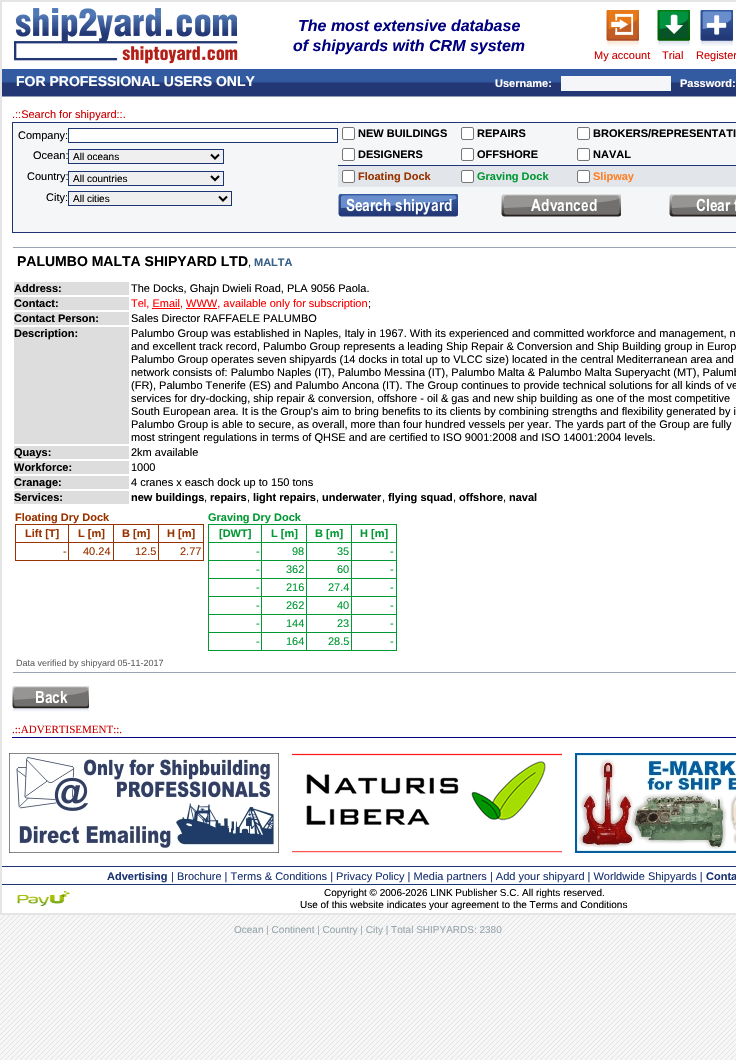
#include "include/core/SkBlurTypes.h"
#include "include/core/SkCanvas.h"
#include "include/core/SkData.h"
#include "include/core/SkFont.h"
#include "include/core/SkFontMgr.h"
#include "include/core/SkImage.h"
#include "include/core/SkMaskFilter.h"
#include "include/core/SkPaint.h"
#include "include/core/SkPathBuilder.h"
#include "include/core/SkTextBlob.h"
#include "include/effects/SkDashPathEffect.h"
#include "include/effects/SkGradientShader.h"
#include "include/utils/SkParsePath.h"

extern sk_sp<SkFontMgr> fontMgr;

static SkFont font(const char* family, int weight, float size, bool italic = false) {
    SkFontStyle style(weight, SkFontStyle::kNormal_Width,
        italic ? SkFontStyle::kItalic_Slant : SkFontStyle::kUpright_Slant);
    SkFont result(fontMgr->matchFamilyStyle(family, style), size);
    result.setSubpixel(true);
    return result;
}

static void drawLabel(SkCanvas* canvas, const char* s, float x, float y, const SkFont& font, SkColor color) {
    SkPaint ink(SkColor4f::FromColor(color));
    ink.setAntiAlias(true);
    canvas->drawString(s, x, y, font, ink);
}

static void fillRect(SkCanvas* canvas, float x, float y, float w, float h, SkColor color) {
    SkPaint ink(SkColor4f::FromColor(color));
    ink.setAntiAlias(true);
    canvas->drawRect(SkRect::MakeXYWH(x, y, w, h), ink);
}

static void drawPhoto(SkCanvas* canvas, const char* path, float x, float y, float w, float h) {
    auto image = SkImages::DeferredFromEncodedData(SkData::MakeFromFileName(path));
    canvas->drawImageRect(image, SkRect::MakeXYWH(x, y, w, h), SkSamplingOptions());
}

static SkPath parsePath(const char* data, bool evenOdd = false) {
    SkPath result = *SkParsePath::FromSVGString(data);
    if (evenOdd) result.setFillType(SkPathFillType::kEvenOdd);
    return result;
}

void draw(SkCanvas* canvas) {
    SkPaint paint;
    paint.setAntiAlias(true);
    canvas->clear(0xFFFFFFFF);
    drawPhoto(canvas, "assets/img1.png", 0, 915, 736, 145);
    paint.setStroke(true);
    paint.setStrokeWidth(2);
    paint.setColor(0xFFE5E5E5);
    canvas->drawRect(SkRect::MakeXYWH(1, 1, 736, 913), paint);
    drawPhoto(canvas, "assets/img2.png", 14, 8, 224, 56);
    SkFont font1 = font("Liberation Sans", 700, 16, true);
    drawLabel(canvas, "The most extensive database", 298, 31, font1, 0xFF000080);
    drawLabel(canvas, "of shipyards with CRM system", 293, 51, font1, 0xFF000080);
    drawPhoto(canvas, "assets/img3.png", 606, 10, 33, 37);
    SkFont font2 = font("Liberation Sans", 400, 11);
    drawLabel(canvas, "My account", 594, 59, font2, 0xFFCC0000);
    drawPhoto(canvas, "assets/img4.png", 657, 10, 33, 36);
    drawLabel(canvas, "Trial", 662, 59, font2, 0xFFCC0000);
    drawPhoto(canvas, "assets/img5.png", 700, 10, 33, 36);
    drawLabel(canvas, "Register", 696, 59, font2, 0xFFCC0000);
    drawPhoto(canvas, "assets/img6.png", 2, 69, 734, 28);
    SkFont font3 = font("Liberation Sans", 700, 14);
    drawLabel(canvas, "FOR PROFESSIONAL USERS ONLY", 16, 86, font3, 0xFFFFFFFF);
    SkFont font4 = font("Liberation Sans", 700, 11);
    drawLabel(canvas, "Username:", 495, 87, font4, 0xFFFFFFFF);
    fillRect(canvas, 561, 76, 110, 15, 0xFFF5F6F8);
    drawLabel(canvas, "Password:", 680, 87, font4, 0xFFFFFFFF);
    drawLabel(canvas, ".::Search for shipyard::.", 12, 118, font2, 0xFFCC0000);
    paint.setStroke(false);
    paint.setColor(0xFFF5F6F8);
    canvas->drawRect(SkRect::MakeXYWH(12.5f, 122.5f, 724, 110), paint);
    paint.setStroke(true);
    paint.setStrokeWidth(1);
    paint.setColor(0xFF1D3474);
    canvas->drawRect(SkRect::MakeXYWH(12.5f, 122.5f, 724, 110), paint);
    drawLabel(canvas, "Company:", 18, 139, font2, 0xFF000000);
    paint.setStroke(false);
    paint.setColor(0xFFFFFFFF);
    canvas->drawRect(SkRect::MakeXYWH(68.5f, 128.5f, 269, 14), paint);
    paint.setStroke(true);
    paint.setColor(0xFF1D3474);
    canvas->drawRect(SkRect::MakeXYWH(68.5f, 128.5f, 269, 14), paint);
    paint.setStroke(false);
    paint.setColor(0xFFFFFFFF);
    canvas->drawRoundRect(SkRect::MakeXYWH(342.5f, 127.5f, 12, 12), 1.5f, 1.5f, paint);
    paint.setStroke(true);
    paint.setColor(0xFF767676);
    canvas->drawRoundRect(SkRect::MakeXYWH(342.5f, 127.5f, 12, 12), 1.5f, 1.5f, paint);
    drawLabel(canvas, "NEW BUILDINGS", 358, 137, font4, 0xFF000000);
    paint.setStroke(false);
    paint.setColor(0xFFFFFFFF);
    canvas->drawRoundRect(SkRect::MakeXYWH(461.5f, 127.5f, 12, 12), 1.5f, 1.5f, paint);
    paint.setStroke(true);
    paint.setColor(0xFF767676);
    canvas->drawRoundRect(SkRect::MakeXYWH(461.5f, 127.5f, 12, 12), 1.5f, 1.5f, paint);
    drawLabel(canvas, "REPAIRS", 477, 137, font4, 0xFF000000);
    paint.setStroke(false);
    paint.setColor(0xFFFFFFFF);
    canvas->drawRoundRect(SkRect::MakeXYWH(577.5f, 127.5f, 12, 12), 1.5f, 1.5f, paint);
    paint.setStroke(true);
    paint.setColor(0xFF767676);
    canvas->drawRoundRect(SkRect::MakeXYWH(577.5f, 127.5f, 12, 12), 1.5f, 1.5f, paint);
    drawLabel(canvas, "BROKERS/REPRESENTATI", 593, 137, font4, 0xFF000000);
    fillRect(canvas, 338, 165, 398, 1, 0xFF1D3474);
    paint.setStroke(false);
    paint.setColor(0xFFFFFFFF);
    canvas->drawRoundRect(SkRect::MakeXYWH(342.5f, 148.5f, 12, 12), 1.5f, 1.5f, paint);
    paint.setStroke(true);
    paint.setColor(0xFF767676);
    canvas->drawRoundRect(SkRect::MakeXYWH(342.5f, 148.5f, 12, 12), 1.5f, 1.5f, paint);
    drawLabel(canvas, "Ocean:", 33, 159, font2, 0xFF000000);
    paint.setStroke(false);
    paint.setColor(0xFFEFEFEF);
    canvas->drawRect(SkRect::MakeXYWH(68.5f, 149.5f, 155, 14), paint);
    paint.setStroke(true);
    paint.setColor(0xFF1D3474);
    canvas->drawRect(SkRect::MakeXYWH(68.5f, 149.5f, 155, 14), paint);
    paint.setStrokeWidth(2);
    paint.setColor(0xFF000000);
    canvas->drawPath(parsePath("M211 154.5L215 158.5L219 154.5"), paint);
    SkFont font5 = font("Liberation Sans", 400, 10);
    drawLabel(canvas, "All oceans", 73, 160, font5, 0xFF000000);
    drawLabel(canvas, "DESIGNERS", 358, 158, font4, 0xFF000000);
    paint.setStroke(false);
    paint.setColor(0xFFFFFFFF);
    canvas->drawRoundRect(SkRect::MakeXYWH(461.5f, 148.5f, 12, 12), 1.5f, 1.5f, paint);
    paint.setStroke(true);
    paint.setStrokeWidth(1);
    paint.setColor(0xFF767676);
    canvas->drawRoundRect(SkRect::MakeXYWH(461.5f, 148.5f, 12, 12), 1.5f, 1.5f, paint);
    drawLabel(canvas, "OFFSHORE", 477, 158, font4, 0xFF000000);
    paint.setStroke(false);
    paint.setColor(0xFFFFFFFF);
    canvas->drawRoundRect(SkRect::MakeXYWH(577.5f, 148.5f, 12, 12), 1.5f, 1.5f, paint);
    paint.setStroke(true);
    paint.setColor(0xFF767676);
    canvas->drawRoundRect(SkRect::MakeXYWH(577.5f, 148.5f, 12, 12), 1.5f, 1.5f, paint);
    drawLabel(canvas, "NAVAL", 593, 158, font4, 0xFF000000);
    fillRect(canvas, 338, 166, 398, 21, 0xFFE2E6EB);
    paint.setStroke(false);
    paint.setColor(0xFFFFFFFF);
    canvas->drawRoundRect(SkRect::MakeXYWH(342.5f, 170.5f, 12, 12), 1.5f, 1.5f, paint);
    paint.setStroke(true);
    paint.setColor(0xFF767676);
    canvas->drawRoundRect(SkRect::MakeXYWH(342.5f, 170.5f, 12, 12), 1.5f, 1.5f, paint);
    drawLabel(canvas, "Country:", 27, 180, font2, 0xFF000000);
    paint.setStroke(false);
    paint.setColor(0xFFEFEFEF);
    canvas->drawRect(SkRect::MakeXYWH(68.5f, 171.5f, 155, 14), paint);
    paint.setStroke(true);
    paint.setColor(0xFF1D3474);
    canvas->drawRect(SkRect::MakeXYWH(68.5f, 171.5f, 155, 14), paint);
    paint.setStrokeWidth(2);
    paint.setColor(0xFF000000);
    canvas->drawPath(parsePath("M211 176L215 180L219 176"), paint);
    drawLabel(canvas, "All countries", 73, 182, font5, 0xFF000000);
    drawLabel(canvas, "Floating Dock", 358, 180, font4, 0xFF993300);
    paint.setStroke(false);
    paint.setColor(0xFFFFFFFF);
    canvas->drawRoundRect(SkRect::MakeXYWH(461.5f, 170.5f, 12, 12), 1.5f, 1.5f, paint);
    paint.setStroke(true);
    paint.setStrokeWidth(1);
    paint.setColor(0xFF767676);
    canvas->drawRoundRect(SkRect::MakeXYWH(461.5f, 170.5f, 12, 12), 1.5f, 1.5f, paint);
    drawLabel(canvas, "Graving Dock", 477, 180, font4, 0xFF009933);
    paint.setStroke(false);
    paint.setColor(0xFFFFFFFF);
    canvas->drawRoundRect(SkRect::MakeXYWH(577.5f, 170.5f, 12, 12), 1.5f, 1.5f, paint);
    paint.setStroke(true);
    paint.setColor(0xFF767676);
    canvas->drawRoundRect(SkRect::MakeXYWH(577.5f, 170.5f, 12, 12), 1.5f, 1.5f, paint);
    drawLabel(canvas, "Slipway", 593, 180, font4, 0xFFFF7F24);
    drawLabel(canvas, "City:", 46, 201, font2, 0xFF000000);
    paint.setStroke(false);
    paint.setColor(0xFFEFEFEF);
    canvas->drawRect(SkRect::MakeXYWH(68.5f, 191.5f, 163, 14), paint);
    paint.setStroke(true);
    paint.setColor(0xFF1D3474);
    canvas->drawRect(SkRect::MakeXYWH(68.5f, 191.5f, 163, 14), paint);
    paint.setStrokeWidth(2);
    paint.setColor(0xFF000000);
    canvas->drawPath(parsePath("M219 196.5L223 200.5L227 196.5"), paint);
    drawLabel(canvas, "All cities", 73, 202, font5, 0xFF000000);
    drawPhoto(canvas, "assets/img7.png", 338, 194, 120, 23);
    drawPhoto(canvas, "assets/img8.png", 501, 194, 120, 23);
    drawPhoto(canvas, "assets/img9.png", 669, 194, 67, 23);
    fillRect(canvas, 13, 247, 723, 1, 0xFF97A3B2);
    drawLabel(canvas, "PALUMBO MALTA SHIPYARD LTD", 17, 266, font3, 0xFF000000);
    drawLabel(canvas, ",", 248, 266, font2, 0xFF000000);
    drawLabel(canvas, "MALTA", 254, 266, font4, 0xFF386088);
    fillRect(canvas, 14, 282, 115, 13, 0xFFDDDDDD);
    drawLabel(canvas, "Address:", 14, 292, font4, 0xFF000000);
    drawLabel(canvas, "The Docks, Ghajn Dwieli Road, PLA 9056 Paola.", 131, 292, font2, 0xFF000000);
    fillRect(canvas, 14, 297, 115, 13, 0xFFDDDDDD);
    drawLabel(canvas, "Contact:", 14, 307, font4, 0xFF000000);
    drawLabel(canvas, "Tel, Email, WWW, available only for subscription", 131, 307, font2, 0xFFFF0000);
    drawLabel(canvas, ";", 368, 307, font2, 0xFF000000);
    fillRect(canvas, 152, 308, 28, 1, 0xFFFF0000);
    fillRect(canvas, 186, 308, 31, 1, 0xFFFF0000);
    fillRect(canvas, 14, 312, 115, 13, 0xFFDDDDDD);
    drawLabel(canvas, "Contact Person:", 14, 322, font4, 0xFF000000);
    drawLabel(canvas, "Sales Director RAFFAELE PALUMBO", 131, 322, font2, 0xFF000000);
    fillRect(canvas, 14, 327, 115, 117, 0xFFDDDDDD);
    drawLabel(canvas, "Description:", 14, 337, font4, 0xFF000000);
    drawLabel(canvas, "Palumbo Group was established in Naples, Italy in 1967. With its experienced and committed workforce and management, n", 131, 337, font2, 0xFF000000);
    drawLabel(canvas, "and excellent track record, Palumbo Group represents a leading Ship Repair & Conversion and Ship Building group in Europ", 131, 350, font2, 0xFF000000);
    drawLabel(canvas, "Palumbo Group operates seven shipyards (14 docks in total up to VLCC size) located in the central Mediterranean area and", 131, 363, font2, 0xFF000000);
    drawLabel(canvas, "network consists of: Palumbo Naples (IT), Palumbo Messina (IT), Palumbo Malta & Palumbo Malta Superyacht (MT), Palumb", 131, 376, font2, 0xFF000000);
    drawLabel(canvas, "(FR), Palumbo Tenerife (ES) and Palumbo Ancona (IT). The Group continues to provide technical solutions for all kinds of ve", 131, 389, font2, 0xFF000000);
    drawLabel(canvas, "services for dry-docking, ship repair & conversion, offshore - oil & gas and new ship building as one of the most competitive", 131, 402, font2, 0xFF000000);
    drawLabel(canvas, "South European area. It is the Group's aim to bring benefits to its clients by combining strengths and flexibility generated by i", 131, 415, font2, 0xFF000000);
    drawLabel(canvas, "Palumbo Group is able to secure, as overall, more than four hundred vessels per year. The yards part of the Group are fully", 131, 428, font2, 0xFF000000);
    drawLabel(canvas, "most stringent regulations in terms of QHSE and are certified to ISO 9001:2008 and ISO 14001:2004 levels.", 131, 441, font2, 0xFF000000);
    fillRect(canvas, 14, 446, 115, 13, 0xFFDDDDDD);
    drawLabel(canvas, "Quays:", 14, 456, font4, 0xFF000000);
    drawLabel(canvas, "2km available", 131, 456, font2, 0xFF000000);
    fillRect(canvas, 14, 461, 115, 13, 0xFFDDDDDD);
    drawLabel(canvas, "Workforce:", 14, 471, font4, 0xFF000000);
    drawLabel(canvas, "1000", 131, 471, font2, 0xFF000000);
    fillRect(canvas, 14, 476, 115, 13, 0xFFDDDDDD);
    drawLabel(canvas, "Cranage:", 14, 486, font4, 0xFF000000);
    drawLabel(canvas, "4 cranes x easch dock up to 150 tons", 131, 486, font2, 0xFF000000);
    fillRect(canvas, 14, 491, 115, 13, 0xFFDDDDDD);
    drawLabel(canvas, "Services:", 14, 501, font4, 0xFF000000);
    drawLabel(canvas, "new buildings", 131, 501, font4, 0xFF000000);
    drawLabel(canvas, ",", 204, 501, font2, 0xFF000000);
    drawLabel(canvas, "repairs", 210, 501, font4, 0xFF000000);
    drawLabel(canvas, ",", 247, 501, font2, 0xFF000000);
    drawLabel(canvas, "light repairs", 253, 501, font4, 0xFF000000);
    drawLabel(canvas, ",", 316, 501, font2, 0xFF000000);
    drawLabel(canvas, "underwater", 322, 501, font4, 0xFF000000);
    drawLabel(canvas, ",", 382, 501, font2, 0xFF000000);
    drawLabel(canvas, "flying squad", 388, 501, font4, 0xFF000000);
    drawLabel(canvas, ",", 453, 501, font2, 0xFF000000);
    drawLabel(canvas, "offshore", 459, 501, font4, 0xFF000000);
    drawLabel(canvas, ",", 503, 501, font2, 0xFF000000);
    drawLabel(canvas, "naval", 509, 501, font4, 0xFF000000);
    drawLabel(canvas, "Floating Dry Dock", 15, 521, font4, 0xFF993300);
    paint.setStrokeWidth(1);
    paint.setColor(0xFF993300);
    canvas->drawRect(SkRect::MakeXYWH(15.5f, 524.5f, 53, 18), paint);
    drawLabel(canvas, "Lift [T]", 25, 537, font4, 0xFF993300);
    fillRect(canvas, 69, 524, 135, 1, 0xFF993300);
    fillRect(canvas, 113, 524, 1, 37, 0xFF993300);
    fillRect(canvas, 69, 542, 45, 1, 0xFF993300);
    drawLabel(canvas, "L [m]", 78, 537, font4, 0xFF993300);
    fillRect(canvas, 158, 524, 1, 37, 0xFF993300);
    fillRect(canvas, 114, 542, 45, 1, 0xFF993300);
    drawLabel(canvas, "B [m]", 122, 537, font4, 0xFF993300);
    fillRect(canvas, 203, 524, 1, 37, 0xFF993300);
    fillRect(canvas, 159, 542, 45, 1, 0xFF993300);
    drawLabel(canvas, "H [m]", 167, 537, font4, 0xFF993300);
    fillRect(canvas, 68, 543, 1, 18, 0xFF993300);
    fillRect(canvas, 15, 560, 189, 1, 0xFF993300);
    fillRect(canvas, 15, 543, 1, 18, 0xFF993300);
    drawLabel(canvas, "-", 63, 555, font2, 0xFF993300);
    drawLabel(canvas, "40.24", 83, 555, font2, 0xFF993300);
    drawLabel(canvas, "12.5", 135, 555, font2, 0xFF993300);
    drawLabel(canvas, "2.77", 180, 555, font2, 0xFF993300);
    drawLabel(canvas, "Graving Dry Dock", 208, 521, font4, 0xFF009933);
    paint.setColor(0xFF009933);
    canvas->drawRect(SkRect::MakeXYWH(208.5f, 524.5f, 53, 18), paint);
    drawLabel(canvas, "[DWT]", 219, 537, font4, 0xFF009933);
    fillRect(canvas, 262, 524, 135, 1, 0xFF009933);
    fillRect(canvas, 306, 524, 1, 127, 0xFF009933);
    fillRect(canvas, 262, 542, 45, 1, 0xFF009933);
    drawLabel(canvas, "L [m]", 271, 537, font4, 0xFF009933);
    fillRect(canvas, 351, 524, 1, 127, 0xFF009933);
    fillRect(canvas, 307, 542, 45, 1, 0xFF009933);
    drawLabel(canvas, "B [m]", 315, 537, font4, 0xFF009933);
    fillRect(canvas, 396, 524, 1, 127, 0xFF009933);
    fillRect(canvas, 352, 542, 45, 1, 0xFF009933);
    drawLabel(canvas, "H [m]", 360, 537, font4, 0xFF009933);
    fillRect(canvas, 261, 543, 1, 108, 0xFF009933);
    fillRect(canvas, 208, 560, 189, 1, 0xFF009933);
    fillRect(canvas, 208, 543, 1, 18, 0xFF009933);
    drawLabel(canvas, "-", 256, 555, font2, 0xFF009933);
    drawLabel(canvas, "98", 292, 555, font2, 0xFF009933);
    drawLabel(canvas, "35", 337, 555, font2, 0xFF009933);
    drawLabel(canvas, "-", 390, 555, font2, 0xFF009933);
    fillRect(canvas, 208, 578, 189, 1, 0xFF009933);
    fillRect(canvas, 208, 561, 1, 18, 0xFF009933);
    drawLabel(canvas, "-", 256, 573, font2, 0xFF009933);
    drawLabel(canvas, "362", 286, 573, font2, 0xFF009933);
    drawLabel(canvas, "60", 337, 573, font2, 0xFF009933);
    drawLabel(canvas, "-", 390, 573, font2, 0xFF009933);
    fillRect(canvas, 208, 596, 189, 1, 0xFF009933);
    fillRect(canvas, 208, 579, 1, 18, 0xFF009933);
    drawLabel(canvas, "-", 256, 591, font2, 0xFF009933);
    drawLabel(canvas, "216", 286, 591, font2, 0xFF009933);
    drawLabel(canvas, "27.4", 328, 591, font2, 0xFF009933);
    drawLabel(canvas, "-", 390, 591, font2, 0xFF009933);
    fillRect(canvas, 208, 614, 189, 1, 0xFF009933);
    fillRect(canvas, 208, 597, 1, 18, 0xFF009933);
    drawLabel(canvas, "-", 256, 609, font2, 0xFF009933);
    drawLabel(canvas, "262", 286, 609, font2, 0xFF009933);
    drawLabel(canvas, "40", 337, 609, font2, 0xFF009933);
    drawLabel(canvas, "-", 390, 609, font2, 0xFF009933);
    fillRect(canvas, 208, 632, 189, 1, 0xFF009933);
    fillRect(canvas, 208, 615, 1, 18, 0xFF009933);
    drawLabel(canvas, "-", 256, 627, font2, 0xFF009933);
    drawLabel(canvas, "144", 286, 627, font2, 0xFF009933);
    drawLabel(canvas, "23", 337, 627, font2, 0xFF009933);
    drawLabel(canvas, "-", 390, 627, font2, 0xFF009933);
    fillRect(canvas, 208, 650, 189, 1, 0xFF009933);
    fillRect(canvas, 208, 633, 1, 18, 0xFF009933);
    drawLabel(canvas, "-", 256, 645, font2, 0xFF009933);
    drawLabel(canvas, "164", 286, 645, font2, 0xFF009933);
    drawLabel(canvas, "28.5", 328, 645, font2, 0xFF009933);
    drawLabel(canvas, "-", 390, 645, font2, 0xFF009933);
    SkFont font6 = font("Liberation Sans", 400, 9);
    drawLabel(canvas, "Data verified by shipyard 05-11-2017", 16, 666, font6, 0xFF626262);
    fillRect(canvas, 13, 672, 723, 1, 0xFF97A3B2);
    drawPhoto(canvas, "assets/img10.png", 12, 686, 77, 26);
    fillRect(canvas, 12, 737, 724, 1, 0xFF000080);
    SkFont font7 = font("Liberation Serif", 400, 11);
    drawLabel(canvas, ".::ADVERTISEMENT::.", 12, 733, font7, 0xFFCC0000);
    drawPhoto(canvas, "assets/img11.png", 9, 753, 270, 100);
    drawPhoto(canvas, "assets/img12.png", 292, 753, 270, 100);
    drawPhoto(canvas, "assets/img13.png", 575, 753, 161, 100);
    fillRect(canvas, 2, 866, 734, 1, 0xFF1D3474);
    drawLabel(canvas, "Advertising", 107, 880, font4, 0xFF1D3474);
    drawLabel(canvas, "| Brochure | Terms & Conditions | Privacy Policy | Media partners | Add your shipyard | Worldwide Shipyards |", 171, 880, font2, 0xFF1D3474);
    drawLabel(canvas, "Conta", 706, 880, font4, 0xFF1D3474);
    fillRect(canvas, 2, 884, 734, 1, 0xFF1D3474);
    drawPhoto(canvas, "assets/img14.png", 16, 890, 55, 16);
    drawLabel(canvas, "Copyright © 2006-2026 LINK Publisher S.C. All rights reserved.", 324, 896, font5, 0xFF000000);
    drawLabel(canvas, "Use of this website indicates your agreement to the Terms and Conditions", 300, 908, font5, 0xFF000000);
    drawLabel(canvas, "Ocean | Continent | Country | City | Total SHIPYARDS: 2380", 234, 933, font5, 0xFF99A8AF);
}
